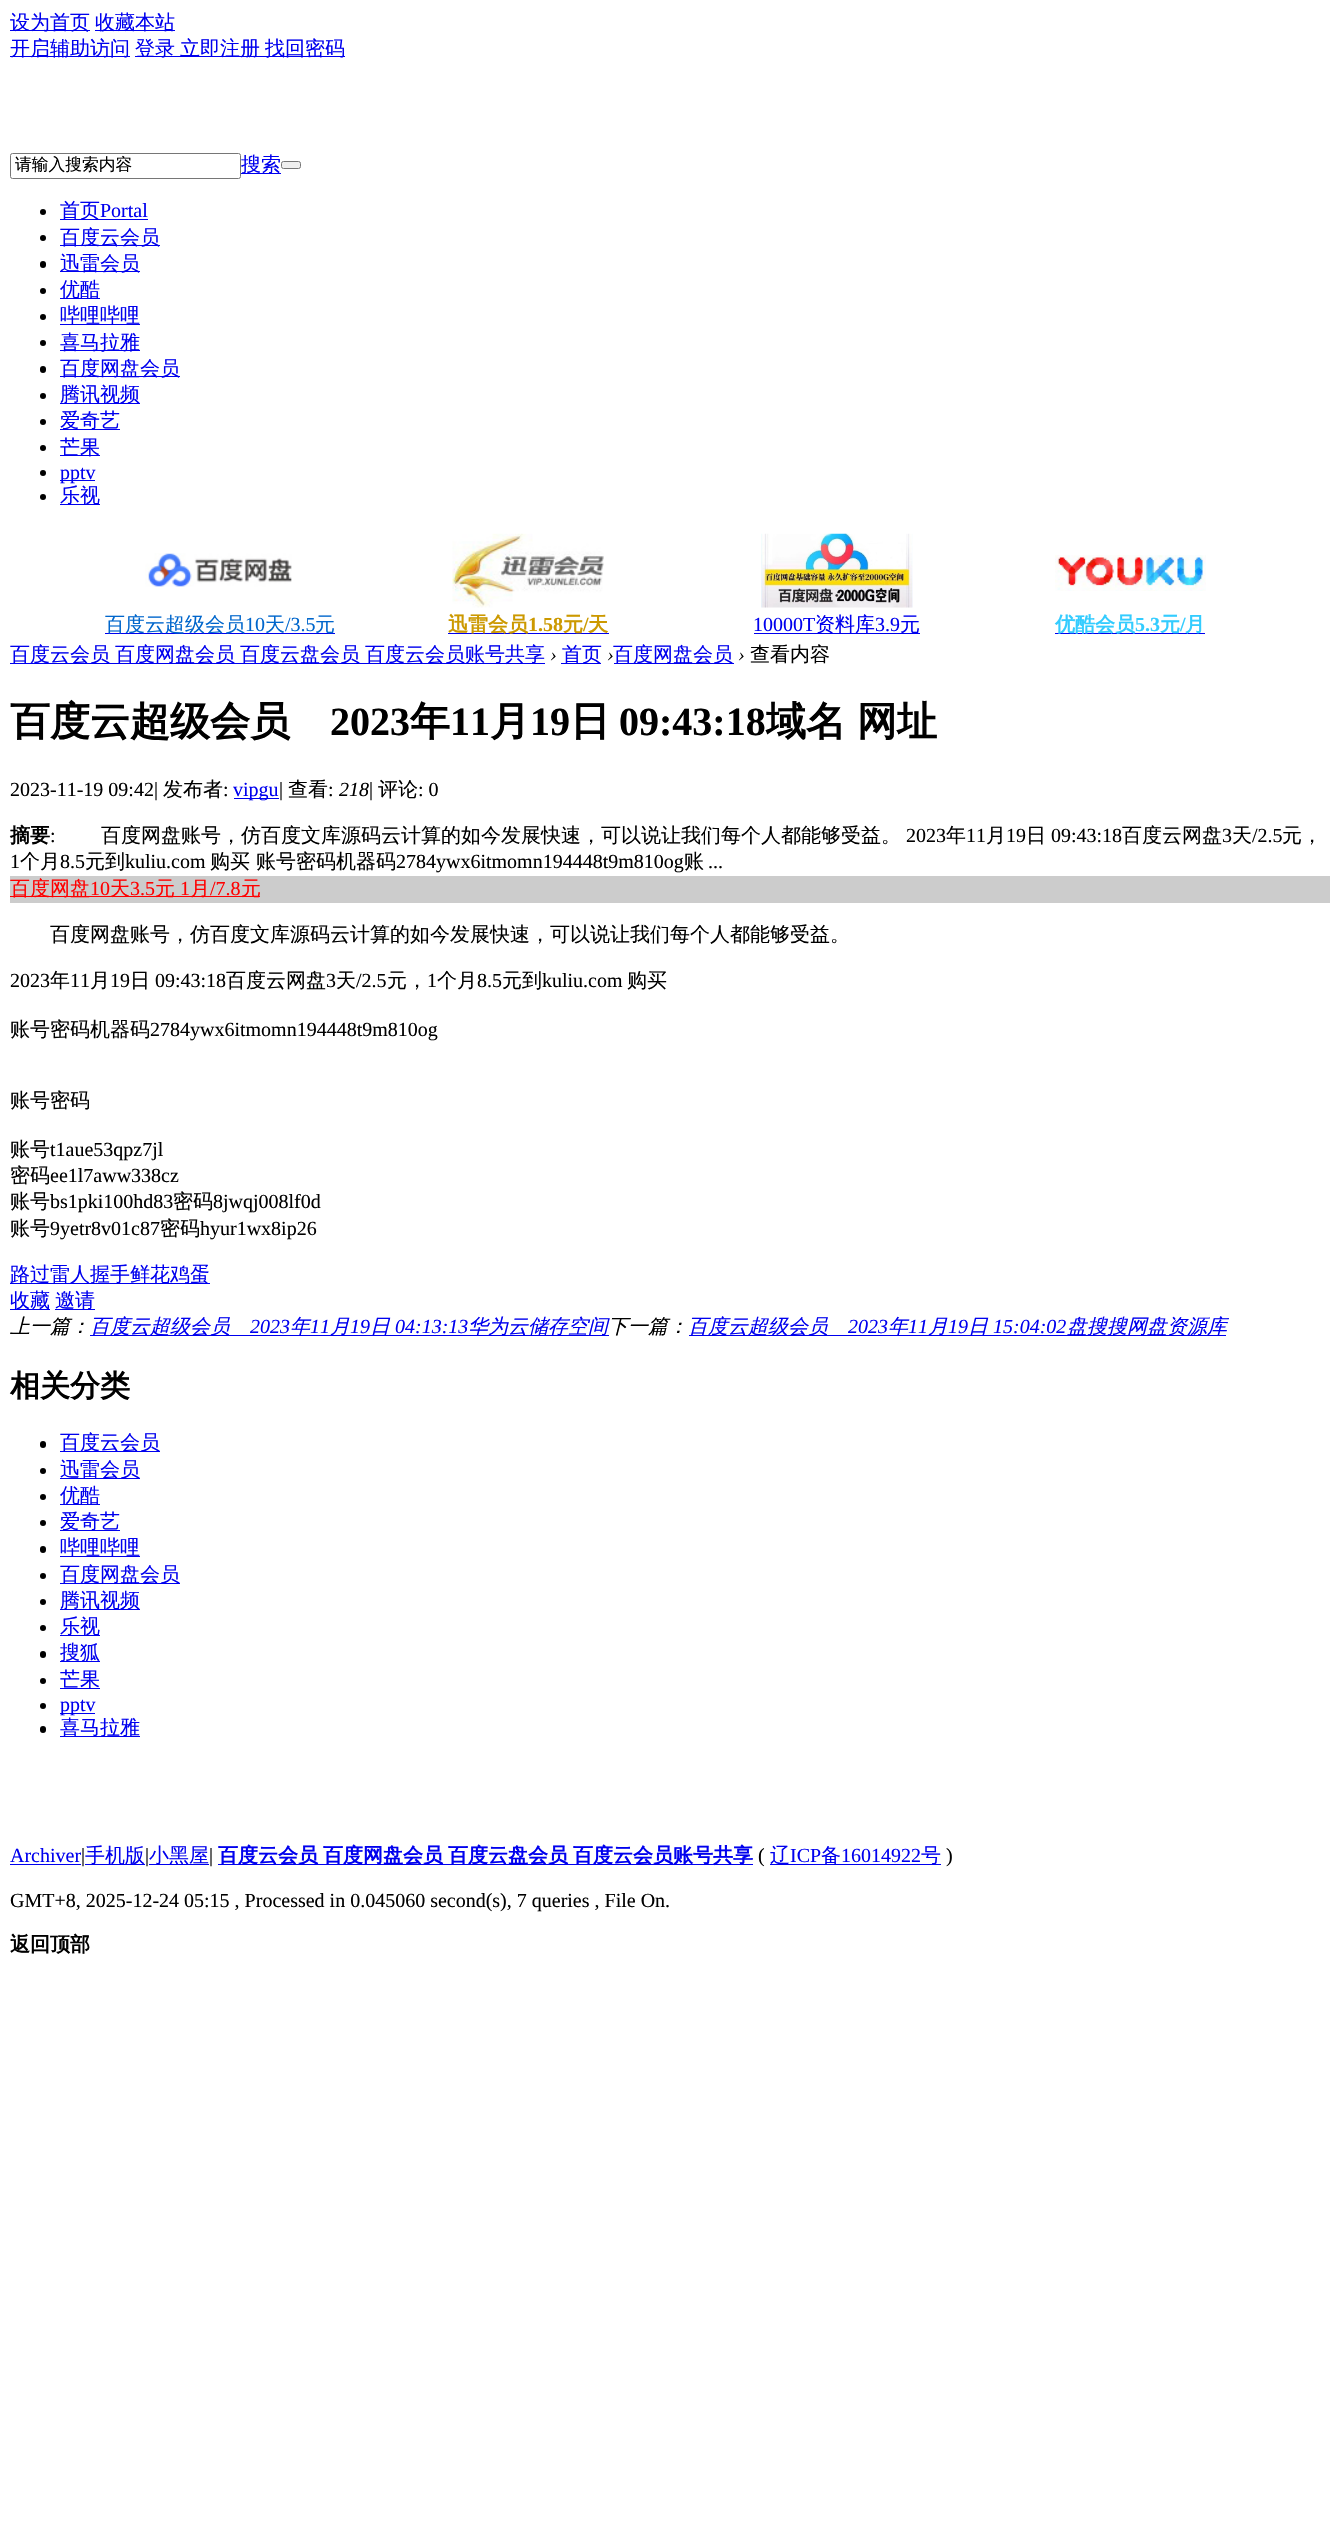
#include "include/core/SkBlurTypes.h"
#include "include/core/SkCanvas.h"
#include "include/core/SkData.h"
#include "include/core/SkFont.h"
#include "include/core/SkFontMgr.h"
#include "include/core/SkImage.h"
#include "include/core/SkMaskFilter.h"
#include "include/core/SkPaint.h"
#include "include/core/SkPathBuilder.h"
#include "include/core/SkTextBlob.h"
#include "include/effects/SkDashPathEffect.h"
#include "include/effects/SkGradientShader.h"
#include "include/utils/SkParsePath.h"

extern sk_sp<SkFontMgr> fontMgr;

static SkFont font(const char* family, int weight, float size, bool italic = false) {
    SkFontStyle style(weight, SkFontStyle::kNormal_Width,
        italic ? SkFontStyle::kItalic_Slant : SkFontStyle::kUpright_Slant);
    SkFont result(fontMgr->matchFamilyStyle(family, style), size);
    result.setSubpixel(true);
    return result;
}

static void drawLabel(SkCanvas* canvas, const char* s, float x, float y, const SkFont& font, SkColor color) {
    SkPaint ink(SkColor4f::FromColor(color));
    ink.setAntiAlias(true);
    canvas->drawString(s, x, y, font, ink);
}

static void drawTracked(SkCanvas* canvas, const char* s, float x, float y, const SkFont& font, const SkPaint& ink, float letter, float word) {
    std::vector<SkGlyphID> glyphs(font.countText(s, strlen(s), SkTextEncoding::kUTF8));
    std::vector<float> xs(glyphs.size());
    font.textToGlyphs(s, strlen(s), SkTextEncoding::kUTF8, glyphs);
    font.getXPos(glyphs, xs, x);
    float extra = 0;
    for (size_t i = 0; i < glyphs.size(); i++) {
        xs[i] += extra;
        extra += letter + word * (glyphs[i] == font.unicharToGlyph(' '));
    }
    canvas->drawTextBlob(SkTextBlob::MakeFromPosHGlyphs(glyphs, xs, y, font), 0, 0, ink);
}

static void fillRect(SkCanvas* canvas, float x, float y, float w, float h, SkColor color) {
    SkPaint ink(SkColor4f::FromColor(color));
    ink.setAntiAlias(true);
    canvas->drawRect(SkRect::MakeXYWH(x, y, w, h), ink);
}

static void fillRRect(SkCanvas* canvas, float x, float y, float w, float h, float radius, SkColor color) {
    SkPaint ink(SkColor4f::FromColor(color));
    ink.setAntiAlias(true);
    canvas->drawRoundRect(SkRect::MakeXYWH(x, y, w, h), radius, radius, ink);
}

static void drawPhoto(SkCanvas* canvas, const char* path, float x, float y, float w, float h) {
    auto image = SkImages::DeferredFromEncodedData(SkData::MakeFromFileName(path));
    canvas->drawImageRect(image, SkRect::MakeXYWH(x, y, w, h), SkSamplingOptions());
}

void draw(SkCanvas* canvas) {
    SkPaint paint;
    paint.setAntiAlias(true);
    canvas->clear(0xFFFFFFFF);
    fillRect(canvas, 10, 30, 80, 1, 0xFF0000EE);
    SkFont font1 = font("WenQuanYi Zen Hei", 500, 20);
    drawLabel(canvas, "设为首页", 10, 29, font1, 0xFF0000EE);
    fillRect(canvas, 95, 30, 80, 1, 0xFF0000EE);
    drawLabel(canvas, "收藏本站", 95, 29, font1, 0xFF0000EE);
    fillRect(canvas, 10, 56, 120, 1, 0xFF0000EE);
    drawLabel(canvas, "开启辅助访问", 10, 55, font1, 0xFF0000EE);
    fillRect(canvas, 135, 56, 210, 1, 0xFF0000EE);
    drawLabel(canvas, "登录", 135, 55, font1, 0xFF0000EE);
    drawLabel(canvas, "立即注册", 180, 55, font1, 0xFF0000EE);
    drawLabel(canvas, "找回密码", 265, 55, font1, 0xFF0000EE);
    paint.setStroke(true);
    paint.setStrokeWidth(1);
    paint.setColor(0xFF767676);
    canvas->drawRoundRect(SkRect::MakeXYWH(10.5f, 153.5f, 230, 25), 2, 2, paint);
    SkFont font2 = font("WenQuanYi Zen Hei", 500, 16.75f);
    drawLabel(canvas, "请输入搜索内容", 15, 170, font2, 0xFF000000);
    fillRect(canvas, 241, 173, 40, 1, 0xFF0000EE);
    drawLabel(canvas, "搜索", 241, 171, font1, 0xFF0000EE);
    paint.setStroke(false);
    paint.setColor(0xFFEFEFEF);
    canvas->drawRoundRect(SkRect::MakeXYWH(281.5f, 161.5f, 19, 7), 2, 2, paint);
    paint.setStroke(true);
    paint.setColor(0xFF767676);
    canvas->drawRoundRect(SkRect::MakeXYWH(281.5f, 161.5f, 19, 7), 2, 2, paint);
    paint.setStroke(false);
    paint.setColor(0xFF000000);
    canvas->drawCircle(43, 212, 3, paint);
    fillRect(canvas, 60, 219, 88, 1, 0xFF0000EE);
    drawLabel(canvas, "首页", 60, 217, font1, 0xFF0000EE);
    SkFont font3 = font("Liberation Serif", 400, 20);
    drawLabel(canvas, "Portal", 100, 217, font3, 0xFF0000EE);
    canvas->drawCircle(43, 238, 3, paint);
    fillRect(canvas, 60, 245, 100, 1, 0xFF0000EE);
    drawLabel(canvas, "百度云会员", 60, 244, font1, 0xFF0000EE);
    fillRRect(canvas, 40, 261, 6, 7, 3, 0xFF000000);
    fillRect(canvas, 60, 271, 80, 1, 0xFF0000EE);
    drawLabel(canvas, "迅雷会员", 60, 270, font1, 0xFF0000EE);
    canvas->drawCircle(43, 291, 3, paint);
    fillRect(canvas, 60, 298, 40, 1, 0xFF0000EE);
    drawLabel(canvas, "优酷", 60, 296, font1, 0xFF0000EE);
    canvas->drawCircle(43, 317, 3, paint);
    fillRect(canvas, 60, 324, 80, 1, 0xFF0000EE);
    drawLabel(canvas, "哔哩哔哩", 60, 322, font1, 0xFF0000EE);
    canvas->drawCircle(43, 343, 3, paint);
    fillRect(canvas, 60, 350, 80, 1, 0xFF0000EE);
    drawLabel(canvas, "喜马拉雅", 60, 349, font1, 0xFF0000EE);
    fillRRect(canvas, 40, 366, 6, 7, 3, 0xFF000000);
    fillRect(canvas, 60, 376, 120, 1, 0xFF0000EE);
    drawLabel(canvas, "百度网盘会员", 60, 375, font1, 0xFF0000EE);
    canvas->drawCircle(43, 396, 3, paint);
    fillRect(canvas, 60, 403, 80, 1, 0xFF0000EE);
    drawLabel(canvas, "腾讯视频", 60, 401, font1, 0xFF0000EE);
    canvas->drawCircle(43, 422, 3, paint);
    fillRect(canvas, 60, 429, 60, 1, 0xFF0000EE);
    drawLabel(canvas, "爱奇艺", 60, 427, font1, 0xFF0000EE);
    canvas->drawCircle(43, 448, 3, paint);
    fillRect(canvas, 60, 455, 40, 1, 0xFF0000EE);
    drawLabel(canvas, "芒果", 60, 454, font1, 0xFF0000EE);
    canvas->drawCircle(43, 473, 3, paint);
    fillRect(canvas, 60, 480, 35, 1, 0xFF0000EE);
    drawLabel(canvas, "pptv", 60, 479, font3, 0xFF0000EE);
    canvas->drawCircle(43, 497, 3, paint);
    fillRect(canvas, 60, 504, 40, 1, 0xFF0000EE);
    drawLabel(canvas, "乐视", 60, 502, font1, 0xFF0000EE);
    drawPhoto(canvas, "assets/img1.png", 145, 553, 147, 34);
    drawPhoto(canvas, "assets/img2.png", 452, 533, 152, 75);
    drawPhoto(canvas, "assets/img3.png", 761, 533, 152, 75);
    drawPhoto(canvas, "assets/img4.png", 1055, 555, 151, 36);
    fillRect(canvas, 105, 633, 230, 1, 0xFF0000EE);
    drawLabel(canvas, "百度云超级会员", 105, 631, font1, 0xFF0066CC);
    drawLabel(canvas, "10", 245, 631, font3, 0xFF0066CC);
    drawLabel(canvas, "天", 265, 631, font1, 0xFF0066CC);
    drawLabel(canvas, "/3.5", 285, 631, font3, 0xFF0066CC);
    drawLabel(canvas, "元", 315, 631, font1, 0xFF0066CC);
    fillRect(canvas, 448, 633, 161, 1, 0xFF0000EE);
    SkFont font4 = font("WenQuanYi Zen Hei", 700, 20);
    drawLabel(canvas, "迅雷会员", 448, 631, font4, 0xFFCC9900);
    SkFont font5 = font("Liberation Serif", 700, 20);
    drawLabel(canvas, "1.58", 528, 631, font5, 0xFFCC9900);
    drawLabel(canvas, "元", 563, 631, font4, 0xFFCC9900);
    drawLabel(canvas, "/", 583, 631, font5, 0xFFCC9900);
    drawLabel(canvas, "天", 588, 631, font4, 0xFFCC9900);
    drawLabel(canvas, "10000T", 753, 631, font3, 0xFF0000EE);
    fillRect(canvas, 754, 633, 166, 1, 0xFF0000EE);
    drawLabel(canvas, "资料库", 815, 631, font1, 0xFF0000EE);
    drawLabel(canvas, "3.9", 875, 631, font3, 0xFF0000EE);
    drawLabel(canvas, "元", 900, 631, font1, 0xFF0000EE);
    fillRect(canvas, 1055, 633, 150, 1, 0xFF0000EE);
    drawLabel(canvas, "优酷会员", 1055, 631, font4, 0xFF33CCFF);
    drawLabel(canvas, "5.3", 1135, 631, font5, 0xFF33CCFF);
    drawLabel(canvas, "元", 1160, 631, font4, 0xFF33CCFF);
    drawLabel(canvas, "/", 1180, 631, font5, 0xFF33CCFF);
    drawLabel(canvas, "月", 1185, 631, font4, 0xFF33CCFF);
    fillRect(canvas, 10, 663, 535, 1, 0xFF0000EE);
    paint.setColor(0xFF0000EE);
    drawTracked(canvas, "百度云会员 百度网盘会员 百度云盘会员 百度云会员账号共享", 10, 661, font1, paint, 0, -1);
    SkFont font6 = font("Liberation Serif", 400, 20, true);
    drawLabel(canvas, "›", 550, 661, font6, 0xFF000000);
    fillRect(canvas, 561, 663, 40, 1, 0xFF0000EE);
    drawLabel(canvas, "首页", 562, 661, font1, 0xFF0000EE);
    drawLabel(canvas, "›", 607, 661, font6, 0xFF000000);
    fillRect(canvas, 614, 663, 120, 1, 0xFF0000EE);
    drawLabel(canvas, "百度网盘会员", 613, 661, font1, 0xFF0000EE);
    drawLabel(canvas, "›", 738, 661, font6, 0xFF000000);
    drawLabel(canvas, "查看内容", 750, 661, font1, 0xFF000000);
    SkFont font7 = font("WenQuanYi Zen Hei", 700, 40);
    drawLabel(canvas, "百度云超级会员", 10, 735, font7, 0xFF000000);
    SkFont font8 = font("Liberation Serif", 700, 40);
    drawLabel(canvas, "2023", 330, 735, font8, 0xFF000000);
    drawLabel(canvas, "年", 410, 735, font7, 0xFF000000);
    drawLabel(canvas, "11", 450, 735, font8, 0xFF000000);
    drawLabel(canvas, "月", 490, 735, font7, 0xFF000000);
    drawLabel(canvas, "19", 530, 735, font8, 0xFF000000);
    drawLabel(canvas, "日", 570, 735, font7, 0xFF000000);
    drawLabel(canvas, "09:43:18", 619, 735, font8, 0xFF000000);
    paint.setColor(0xFF000000);
    drawTracked(canvas, "域名 网址", 766, 735, font7, paint, 0, -1);
    drawLabel(canvas, "2023-11-19 09:42|", 10, 796, font3, 0xFF000000);
    drawLabel(canvas, "发布者", 163, 796, font1, 0xFF000000);
    drawLabel(canvas, ":", 223, 796, font3, 0xFF000000);
    fillRect(canvas, 234, 798, 45, 1, 0xFF0000EE);
    drawLabel(canvas, "vipgu", 233, 796, font3, 0xFF0000EE);
    drawLabel(canvas, "|", 279, 796, font3, 0xFF000000);
    drawLabel(canvas, "查看", 288, 796, font1, 0xFF000000);
    drawLabel(canvas, ":", 328, 796, font3, 0xFF000000);
    drawLabel(canvas, "218", 339, 796, font6, 0xFF000000);
    drawLabel(canvas, "|", 369, 796, font3, 0xFF000000);
    drawLabel(canvas, "评论", 378, 796, font1, 0xFF000000);
    drawLabel(canvas, ": 0", 418, 796, font3, 0xFF000000);
    drawLabel(canvas, "摘要", 10, 842, font4, 0xFF000000);
    drawLabel(canvas, ":", 50, 842, font3, 0xFF000000);
    drawLabel(canvas, "百度网盘账号，仿百度文库源码云计算的如今发展快速，可以说让我们每个人都能够受益。", 101, 842, font1, 0xFF000000);
    drawLabel(canvas, "2023", 906, 842, font3, 0xFF000000);
    drawLabel(canvas, "年", 946, 842, font1, 0xFF000000);
    drawLabel(canvas, "11", 966, 842, font3, 0xFF000000);
    drawLabel(canvas, "月", 986, 842, font1, 0xFF000000);
    drawLabel(canvas, "19", 1006, 842, font3, 0xFF000000);
    drawLabel(canvas, "日", 1026, 842, font1, 0xFF000000);
    drawLabel(canvas, "09:43:18", 1051, 842, font3, 0xFF000000);
    drawLabel(canvas, "百度云网盘", 1122, 842, font1, 0xFF000000);
    drawLabel(canvas, "3", 1222, 842, font3, 0xFF000000);
    drawLabel(canvas, "天", 1232, 842, font1, 0xFF000000);
    drawLabel(canvas, "/2.5", 1252, 842, font3, 0xFF000000);
    drawLabel(canvas, "元，", 1282, 842, font1, 0xFF000000);
    drawLabel(canvas, "1", 10, 868, font3, 0xFF000000);
    drawLabel(canvas, "个月", 20, 868, font1, 0xFF000000);
    drawLabel(canvas, "8.5", 60, 868, font3, 0xFF000000);
    drawLabel(canvas, "元到", 85, 868, font1, 0xFF000000);
    drawLabel(canvas, "kuliu.com", 125, 868, font3, 0xFF000000);
    drawLabel(canvas, "购买 账号密码机器码", 210, 868, font1, 0xFF000000);
    drawLabel(canvas, "2784ywx6itmomn194448t9m810og", 396, 868, font3, 0xFF000000);
    drawLabel(canvas, "账", 684, 868, font1, 0xFF000000);
    drawLabel(canvas, "...", 708, 868, font3, 0xFF000000);
    fillRect(canvas, 10, 876, 1320, 27, 0xFFCCCCCC);
    fillRect(canvas, 10, 896, 250, 1, 0xFFFF0000);
    drawLabel(canvas, "百度网盘", 10, 895, font1, 0xFFFF0000);
    drawLabel(canvas, "10", 90, 895, font3, 0xFFFF0000);
    drawLabel(canvas, "天", 110, 895, font1, 0xFFFF0000);
    drawLabel(canvas, "3.5", 130, 895, font3, 0xFFFF0000);
    drawLabel(canvas, "元", 155, 895, font1, 0xFFFF0000);
    drawLabel(canvas, "1", 180, 895, font3, 0xFFFF0000);
    drawLabel(canvas, "月", 190, 895, font1, 0xFFFF0000);
    drawLabel(canvas, "/7.8", 210, 895, font3, 0xFFFF0000);
    drawLabel(canvas, "元", 241, 895, font1, 0xFFFF0000);
    drawLabel(canvas, "百度网盘账号，仿百度文库源码云计算的如今发展快速，可以说让我们每个人都能够受益。", 50, 941, font1, 0xFF000000);
    drawLabel(canvas, "2023", 10, 987, font3, 0xFF000000);
    drawLabel(canvas, "年", 50, 987, font1, 0xFF000000);
    drawLabel(canvas, "11", 70, 987, font3, 0xFF000000);
    drawLabel(canvas, "月", 90, 987, font1, 0xFF000000);
    drawLabel(canvas, "19", 110, 987, font3, 0xFF000000);
    drawLabel(canvas, "日", 130, 987, font1, 0xFF000000);
    drawLabel(canvas, "09:43:18", 155, 987, font3, 0xFF000000);
    drawLabel(canvas, "百度云网盘", 226, 987, font1, 0xFF000000);
    drawLabel(canvas, "3", 326, 987, font3, 0xFF000000);
    drawLabel(canvas, "天", 336, 987, font1, 0xFF000000);
    drawLabel(canvas, "/2.5", 356, 987, font3, 0xFF000000);
    drawLabel(canvas, "元，", 387, 987, font1, 0xFF000000);
    drawLabel(canvas, "1", 427, 987, font3, 0xFF000000);
    drawLabel(canvas, "个月", 437, 987, font1, 0xFF000000);
    drawLabel(canvas, "8.5", 477, 987, font3, 0xFF000000);
    drawLabel(canvas, "元到", 502, 987, font1, 0xFF000000);
    drawLabel(canvas, "kuliu.com", 542, 987, font3, 0xFF000000);
    drawLabel(canvas, "购买", 627, 987, font1, 0xFF000000);
    drawLabel(canvas, "账号密码机器码", 10, 1036, font1, 0xFF000000);
    drawLabel(canvas, "2784ywx6itmomn194448t9m810og", 150, 1036, font3, 0xFF000000);
    drawLabel(canvas, "账号密码", 10, 1107, font1, 0xFF000000);
    drawLabel(canvas, "账号", 10, 1156, font1, 0xFF000000);
    drawLabel(canvas, "t1aue53qpz7jl", 50, 1156, font3, 0xFF000000);
    drawLabel(canvas, "密码", 10, 1182, font1, 0xFF000000);
    drawLabel(canvas, "ee1l7aww338cz", 50, 1182, font3, 0xFF000000);
    drawLabel(canvas, "账号", 10, 1208, font1, 0xFF000000);
    drawLabel(canvas, "bs1pki100hd83", 50, 1208, font3, 0xFF000000);
    drawLabel(canvas, "密码", 173, 1208, font1, 0xFF000000);
    drawLabel(canvas, "8jwqj008lf0d", 213, 1208, font3, 0xFF000000);
    drawLabel(canvas, "账号", 10, 1235, font1, 0xFF000000);
    drawLabel(canvas, "9yetr8v01c87", 50, 1235, font3, 0xFF000000);
    drawLabel(canvas, "密码", 160, 1235, font1, 0xFF000000);
    drawLabel(canvas, "hyur1wx8ip26", 200, 1235, font3, 0xFF000000);
    fillRect(canvas, 10, 1283, 200, 1, 0xFF0000EE);
    drawLabel(canvas, "路过雷人握手鲜花鸡蛋", 10, 1281, font1, 0xFF0000EE);
    fillRect(canvas, 10, 1309, 40, 1, 0xFF0000EE);
    drawLabel(canvas, "收藏", 10, 1307, font1, 0xFF0000EE);
    fillRect(canvas, 55, 1309, 40, 1, 0xFF0000EE);
    drawLabel(canvas, "邀请", 55, 1307, font1, 0xFF0000EE);
    SkFont font9 = font("WenQuanYi Zen Hei", 500, 20, true);
    drawLabel(canvas, "上一篇：", 10, 1333, font9, 0xFF000000);
    fillRect(canvas, 90, 1335, 519, 1, 0xFF0000EE);
    drawLabel(canvas, "百度云超级会员", 90, 1333, font9, 0xFF0000EE);
    drawLabel(canvas, "2023", 250, 1333, font6, 0xFF0000EE);
    drawLabel(canvas, "年", 290, 1333, font9, 0xFF0000EE);
    drawLabel(canvas, "11", 310, 1333, font6, 0xFF0000EE);
    drawLabel(canvas, "月", 330, 1333, font9, 0xFF0000EE);
    drawLabel(canvas, "19", 350, 1333, font6, 0xFF0000EE);
    drawLabel(canvas, "日", 370, 1333, font9, 0xFF0000EE);
    drawLabel(canvas, "04:13:13", 395, 1333, font6, 0xFF0000EE);
    drawLabel(canvas, "华为云储存空间", 468, 1333, font9, 0xFF0000EE);
    drawLabel(canvas, "下一篇：", 608, 1333, font9, 0xFF000000);
    fillRect(canvas, 689, 1335, 537, 1, 0xFF0000EE);
    drawLabel(canvas, "百度云超级会员", 688, 1333, font9, 0xFF0000EE);
    drawLabel(canvas, "2023", 848, 1333, font6, 0xFF0000EE);
    drawLabel(canvas, "年", 888, 1333, font9, 0xFF0000EE);
    drawLabel(canvas, "11", 908, 1333, font6, 0xFF0000EE);
    drawLabel(canvas, "月", 928, 1333, font9, 0xFF0000EE);
    drawLabel(canvas, "19", 948, 1333, font6, 0xFF0000EE);
    drawLabel(canvas, "日", 968, 1333, font9, 0xFF0000EE);
    drawLabel(canvas, "15:04:02", 993, 1333, font6, 0xFF0000EE);
    drawLabel(canvas, "盘搜搜网盘资源库", 1067, 1333, font9, 0xFF0000EE);
    SkFont font10 = font("WenQuanYi Zen Hei", 700, 30);
    drawLabel(canvas, "相关分类", 10, 1396, font10, 0xFF000000);
    fillRRect(canvas, 40, 1441, 6, 7, 3, 0xFF000000);
    fillRect(canvas, 60, 1451, 100, 1, 0xFF0000EE);
    drawLabel(canvas, "百度云会员", 60, 1449, font1, 0xFF0000EE);
    canvas->drawCircle(43, 1471, 3, paint);
    fillRect(canvas, 60, 1478, 80, 1, 0xFF0000EE);
    drawLabel(canvas, "迅雷会员", 60, 1476, font1, 0xFF0000EE);
    canvas->drawCircle(43, 1497, 3, paint);
    fillRect(canvas, 60, 1504, 40, 1, 0xFF0000EE);
    drawLabel(canvas, "优酷", 60, 1502, font1, 0xFF0000EE);
    canvas->drawCircle(43, 1523, 3, paint);
    fillRect(canvas, 60, 1530, 60, 1, 0xFF0000EE);
    drawLabel(canvas, "爱奇艺", 60, 1528, font1, 0xFF0000EE);
    fillRRect(canvas, 40, 1546, 6, 7, 3, 0xFF000000);
    fillRect(canvas, 60, 1556, 80, 1, 0xFF0000EE);
    drawLabel(canvas, "哔哩哔哩", 60, 1554, font1, 0xFF0000EE);
    canvas->drawCircle(43, 1576, 3, paint);
    fillRect(canvas, 60, 1583, 120, 1, 0xFF0000EE);
    drawLabel(canvas, "百度网盘会员", 60, 1581, font1, 0xFF0000EE);
    canvas->drawCircle(43, 1602, 3, paint);
    fillRect(canvas, 60, 1609, 80, 1, 0xFF0000EE);
    drawLabel(canvas, "腾讯视频", 60, 1607, font1, 0xFF0000EE);
    canvas->drawCircle(43, 1628, 3, paint);
    fillRect(canvas, 60, 1635, 40, 1, 0xFF0000EE);
    drawLabel(canvas, "乐视", 60, 1633, font1, 0xFF0000EE);
    fillRRect(canvas, 40, 1651, 6, 7, 3, 0xFF000000);
    fillRect(canvas, 60, 1661, 40, 1, 0xFF0000EE);
    drawLabel(canvas, "搜狐", 60, 1659, font1, 0xFF0000EE);
    canvas->drawCircle(43, 1681, 3, paint);
    fillRect(canvas, 60, 1688, 40, 1, 0xFF0000EE);
    drawLabel(canvas, "芒果", 60, 1686, font1, 0xFF0000EE);
    canvas->drawCircle(43, 1706, 3, paint);
    fillRect(canvas, 60, 1713, 35, 1, 0xFF0000EE);
    drawLabel(canvas, "pptv", 60, 1711, font3, 0xFF0000EE);
    fillRRect(canvas, 40, 1726, 6, 7, 3, 0xFF000000);
    fillRect(canvas, 60, 1736, 80, 1, 0xFF0000EE);
    drawLabel(canvas, "喜马拉雅", 60, 1734, font1, 0xFF0000EE);
    drawLabel(canvas, "Archiver", 10, 1862, font3, 0xFF0000EE);
    fillRect(canvas, 10, 1864, 71, 1, 0xFF0000EE);
    drawLabel(canvas, "|", 81, 1862, font3, 0xFF000000);
    fillRect(canvas, 85, 1864, 60, 1, 0xFF0000EE);
    drawLabel(canvas, "手机版", 85, 1862, font1, 0xFF0000EE);
    drawLabel(canvas, "|", 145, 1862, font3, 0xFF000000);
    fillRect(canvas, 149, 1864, 60, 1, 0xFF0000EE);
    drawLabel(canvas, "小黑屋", 149, 1862, font1, 0xFF0000EE);
    drawLabel(canvas, "|", 209, 1862, font3, 0xFF000000);
    fillRect(canvas, 218, 1864, 535, 1, 0xFF0000EE);
    paint.setColor(0xFF0000EE);
    drawTracked(canvas, "百度云会员 百度网盘会员 百度云盘会员 百度云会员账号共享", 218, 1862, font4, paint, 0, -1);
    drawLabel(canvas, "(", 758, 1862, font3, 0xFF000000);
    fillRect(canvas, 770, 1864, 171, 1, 0xFF0000EE);
    drawLabel(canvas, "辽", 770, 1862, font1, 0xFF0000EE);
    drawLabel(canvas, "ICP", 790, 1862, font3, 0xFF0000EE);
    drawLabel(canvas, "备", 821, 1862, font1, 0xFF0000EE);
    drawLabel(canvas, "16014922", 841, 1862, font3, 0xFF0000EE);
    drawLabel(canvas, "号", 921, 1862, font1, 0xFF0000EE);
    drawLabel(canvas, ")", 946, 1862, font3, 0xFF000000);
    drawLabel(canvas, "GMT+8, 2025-12-24 05:15 , Processed in 0.045060 second(s), 7 queries , File On.", 10, 1907, font3, 0xFF000000);
    drawLabel(canvas, "返回顶部", 10, 1951, font4, 0xFF000000);
}
